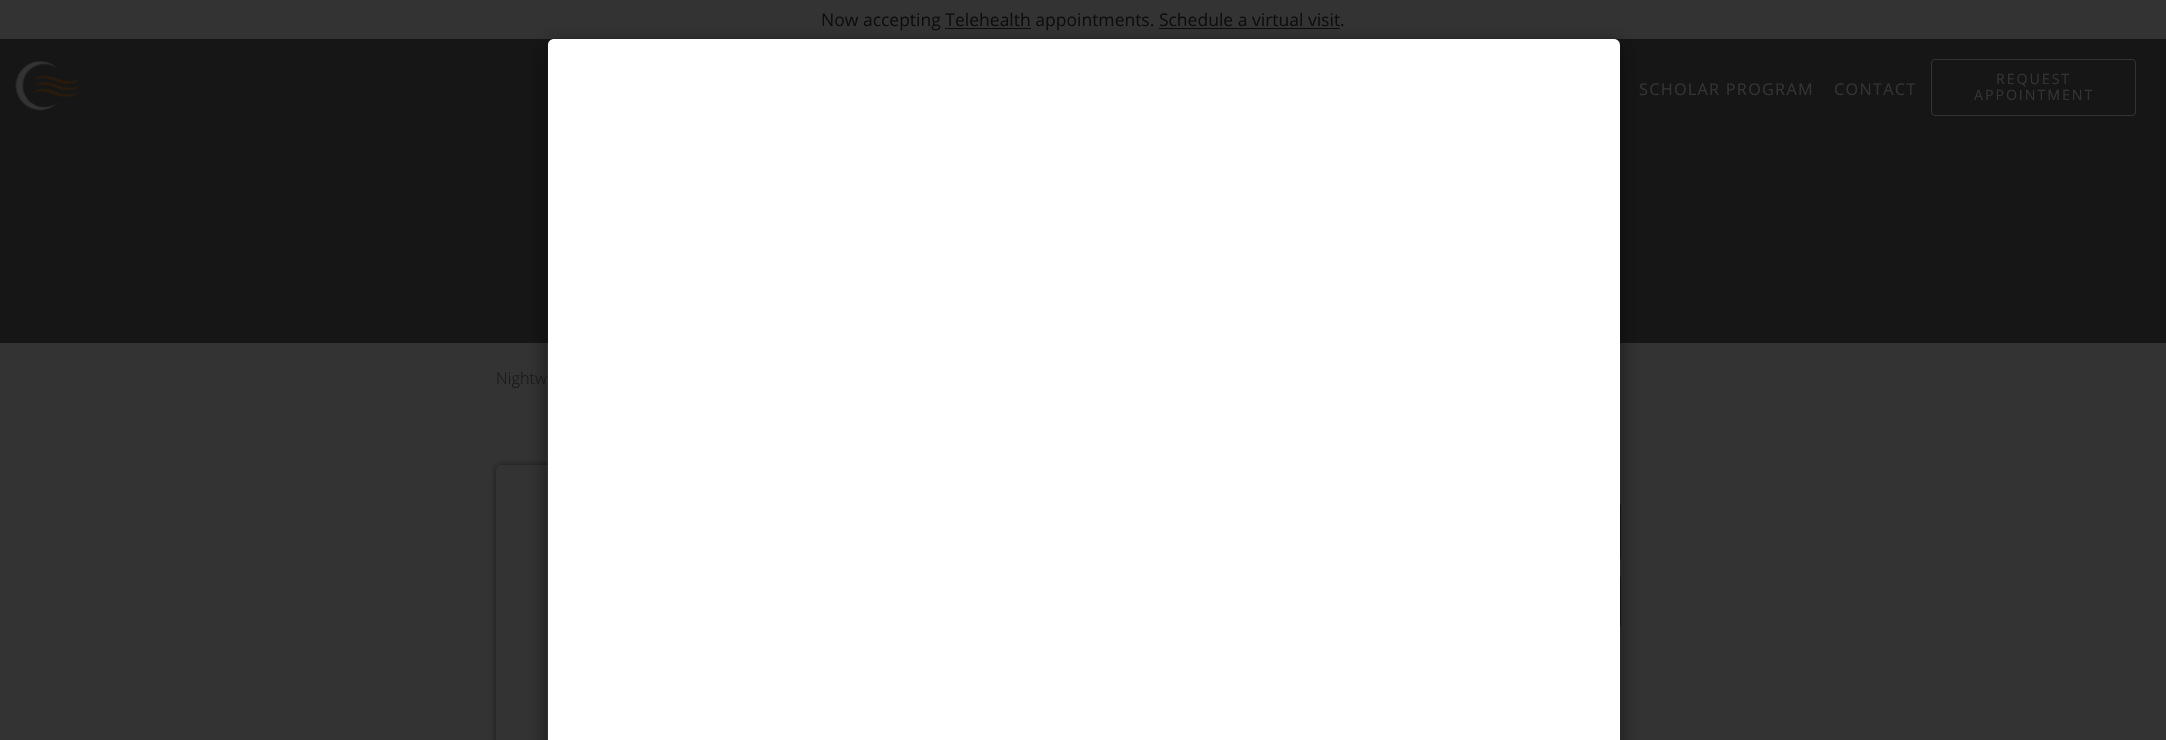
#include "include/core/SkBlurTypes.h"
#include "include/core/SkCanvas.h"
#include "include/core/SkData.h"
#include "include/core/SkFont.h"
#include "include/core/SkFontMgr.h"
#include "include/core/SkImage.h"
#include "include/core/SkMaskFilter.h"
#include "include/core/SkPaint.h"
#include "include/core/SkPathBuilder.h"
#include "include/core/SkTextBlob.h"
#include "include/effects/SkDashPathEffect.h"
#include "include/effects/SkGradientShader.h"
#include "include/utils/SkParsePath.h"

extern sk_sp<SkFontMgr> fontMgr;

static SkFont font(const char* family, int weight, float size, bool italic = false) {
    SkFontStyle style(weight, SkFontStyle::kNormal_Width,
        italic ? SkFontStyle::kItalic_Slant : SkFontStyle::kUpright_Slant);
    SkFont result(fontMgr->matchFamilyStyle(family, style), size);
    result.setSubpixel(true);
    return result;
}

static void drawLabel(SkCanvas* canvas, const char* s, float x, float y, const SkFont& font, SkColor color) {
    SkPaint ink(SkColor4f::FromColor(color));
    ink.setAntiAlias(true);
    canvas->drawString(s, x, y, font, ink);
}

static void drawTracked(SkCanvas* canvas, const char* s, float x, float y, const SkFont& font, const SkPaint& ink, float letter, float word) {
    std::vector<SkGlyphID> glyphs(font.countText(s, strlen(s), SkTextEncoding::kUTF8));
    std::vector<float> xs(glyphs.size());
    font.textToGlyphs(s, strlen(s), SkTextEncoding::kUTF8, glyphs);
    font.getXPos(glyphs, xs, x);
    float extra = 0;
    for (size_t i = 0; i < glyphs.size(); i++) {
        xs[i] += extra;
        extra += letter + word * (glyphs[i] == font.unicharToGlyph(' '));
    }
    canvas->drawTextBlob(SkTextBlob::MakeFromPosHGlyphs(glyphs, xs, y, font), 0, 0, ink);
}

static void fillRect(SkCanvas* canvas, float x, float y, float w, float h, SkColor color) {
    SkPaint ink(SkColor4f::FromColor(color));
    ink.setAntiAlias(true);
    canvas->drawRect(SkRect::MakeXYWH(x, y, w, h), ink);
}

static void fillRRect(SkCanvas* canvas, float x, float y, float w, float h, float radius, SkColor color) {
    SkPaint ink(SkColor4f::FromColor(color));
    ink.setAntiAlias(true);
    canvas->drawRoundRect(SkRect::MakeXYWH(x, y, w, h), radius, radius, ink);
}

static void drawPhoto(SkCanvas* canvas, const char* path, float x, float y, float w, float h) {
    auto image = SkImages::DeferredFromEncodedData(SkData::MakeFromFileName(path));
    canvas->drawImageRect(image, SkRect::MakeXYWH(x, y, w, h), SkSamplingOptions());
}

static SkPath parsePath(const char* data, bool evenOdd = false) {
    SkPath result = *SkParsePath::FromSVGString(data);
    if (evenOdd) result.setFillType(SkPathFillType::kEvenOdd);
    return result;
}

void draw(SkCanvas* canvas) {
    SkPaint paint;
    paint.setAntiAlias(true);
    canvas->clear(0xFF333333);
    SkFont font1 = font("Open Sans", 400, 17.5f);
    drawLabel(canvas, "Now accepting Telehealth appointments. Schedule a virtual visit.", 821, 26, font1, 0xFF0D0D0D);
    fillRect(canvas, 945, 28, 86, 1, 0xFF0D0D0D);
    fillRect(canvas, 1159, 28, 181, 1, 0xFF0D0D0D);
    fillRect(canvas, 0, 39, 2166, 304, 0xFF161617);
    fillRRect(canvas, 1371, 503, 250, 57, 4, 0xFF181819);
    paint.setStroke(true);
    paint.setStrokeWidth(1);
    paint.setColor(0xFF181819);
    canvas->drawRoundRect(SkRect::MakeXYWH(1371.5f, 573.5f, 249, 56), 5.5f, 5.5f, paint);
    canvas->save();
    canvas->clipPath(parsePath("M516 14H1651V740H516ZM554 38H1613C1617.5 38 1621 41.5 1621 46V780C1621 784.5 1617.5 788 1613 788H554C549.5 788 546 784.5 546 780V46C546 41.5 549.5 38 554 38Z", true), true);
    paint.setStroke(false);
    paint.setColor(0x80000000);
    paint.setMaskFilter(SkMaskFilter::MakeBlur(kNormal_SkBlurStyle, 9.5f));
    canvas->drawRoundRect(SkRect::MakeXYWH(546, 44, 1075, 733), 8, 8, paint);
    paint.setMaskFilter(nullptr);
    canvas->restore();
    canvas->save();
    canvas->clipPath(parsePath("M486 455H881V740H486ZM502 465H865C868.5 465 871 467.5 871 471V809C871 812.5 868.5 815 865 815H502C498.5 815 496 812.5 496 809V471C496 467.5 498.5 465 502 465Z", true), true);
    paint.setMaskFilter(SkMaskFilter::MakeBlur(kNormal_SkBlurStyle, 3));
    canvas->drawRoundRect(SkRect::MakeXYWH(496, 465, 375, 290), 6, 6, paint);
    paint.setMaskFilter(nullptr);
    canvas->restore();
    paint.setColor(0xFFFFFFFF);
    canvas->drawPath(parsePath("M554 39H1614C1617.5 39 1620 41.5 1620 45V740H548V45C548 41.5 550.5 39 554 39Z"), paint);
    SkFont font2 = font("Open Sans", 300, 16.25f);
    drawLabel(canvas, "Nightw", 496, 384, font2, 0xFF141617);
    paint.setStroke(true);
    paint.setColor(0x33000000);
    canvas->drawRoundRect(SkRect::MakeXYWH(546.5f, 38.5f, 1074, 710), 7.5f, 7.5f, paint);
    drawPhoto(canvas, "assets/img1.png", 15, 61, 66, 50);
    SkFont font3 = font("Open Sans", 400, 16.25f);
    paint.setStroke(false);
    paint.setColor(0xFF333333);
    drawTracked(canvas, "SCHOLAR PROGRAM", 1639, 95, font3, paint, 1.25f, 0);
    drawTracked(canvas, "CONTACT", 1834, 95, font3, paint, 1.25f, 0);
    paint.setStroke(true);
    canvas->drawRoundRect(SkRect::MakeXYWH(1931.5f, 59.5f, 204, 56), 3.5f, 3.5f, paint);
    SkFont font4 = font("Open Sans", 400, 14.25f);
    paint.setStroke(false);
    drawTracked(canvas, "REQUEST", 1996, 84, font4, paint, 1.9f, 0);
    drawTracked(canvas, "APPOINTMENT", 1974, 100, font4, paint, 1.9f, 0);
}
